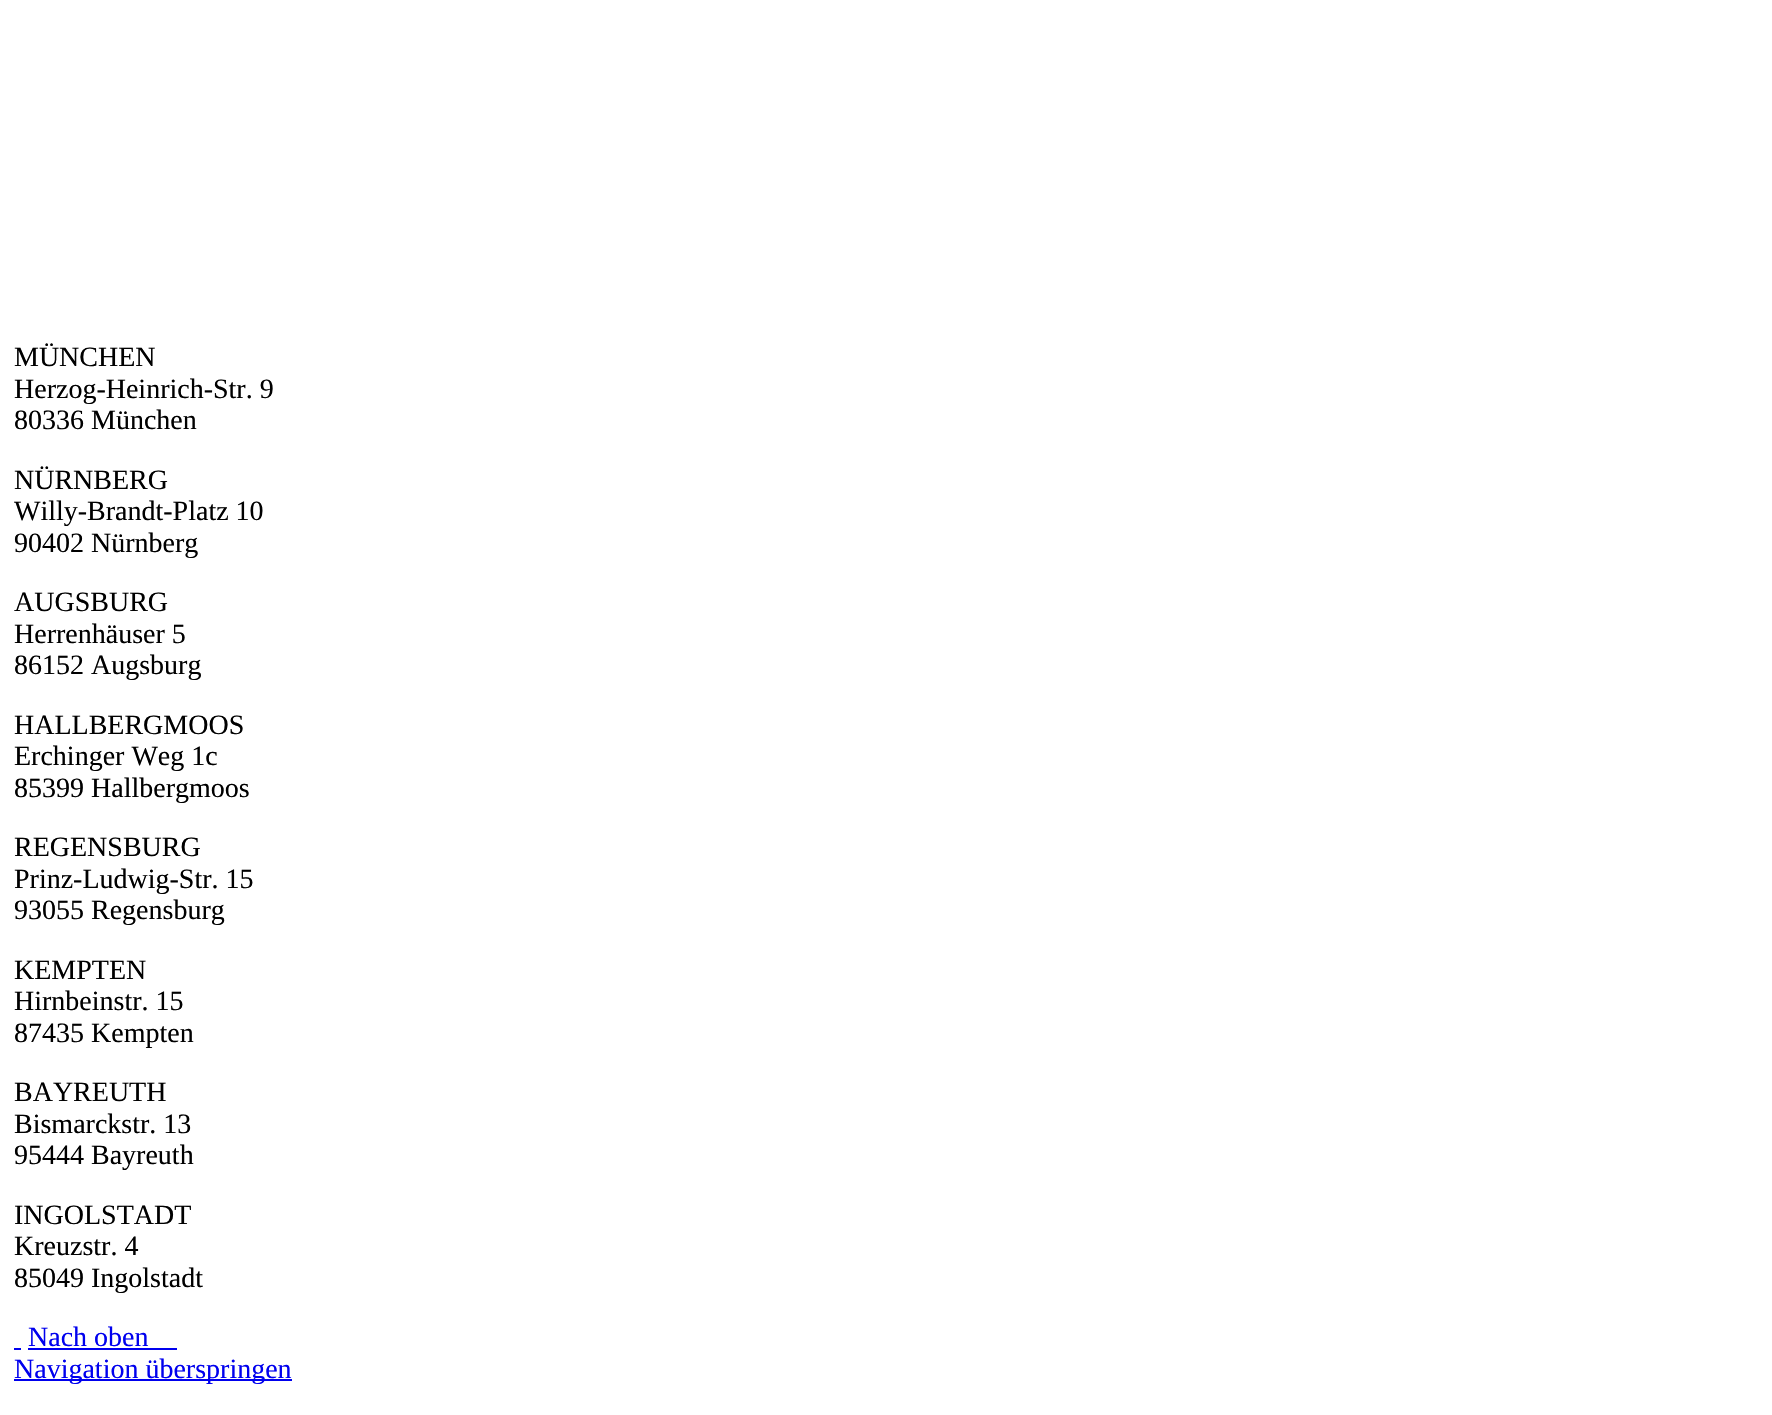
#include "include/core/SkBlurTypes.h"
#include "include/core/SkCanvas.h"
#include "include/core/SkData.h"
#include "include/core/SkFont.h"
#include "include/core/SkFontMgr.h"
#include "include/core/SkImage.h"
#include "include/core/SkMaskFilter.h"
#include "include/core/SkPaint.h"
#include "include/core/SkPathBuilder.h"
#include "include/core/SkTextBlob.h"
#include "include/effects/SkDashPathEffect.h"
#include "include/effects/SkGradientShader.h"
#include "include/utils/SkParsePath.h"

extern sk_sp<SkFontMgr> fontMgr;

static SkFont font(const char* family, int weight, float size, bool italic = false) {
    SkFontStyle style(weight, SkFontStyle::kNormal_Width,
        italic ? SkFontStyle::kItalic_Slant : SkFontStyle::kUpright_Slant);
    SkFont result(fontMgr->matchFamilyStyle(family, style), size);
    result.setSubpixel(true);
    return result;
}

static void drawLabel(SkCanvas* canvas, const char* s, float x, float y, const SkFont& font, SkColor color) {
    SkPaint ink(SkColor4f::FromColor(color));
    ink.setAntiAlias(true);
    canvas->drawString(s, x, y, font, ink);
}

static void fillRect(SkCanvas* canvas, float x, float y, float w, float h, SkColor color) {
    SkPaint ink(SkColor4f::FromColor(color));
    ink.setAntiAlias(true);
    canvas->drawRect(SkRect::MakeXYWH(x, y, w, h), ink);
}

void draw(SkCanvas* canvas) {
    SkPaint paint;
    paint.setAntiAlias(true);
    canvas->clear(0xFFFFFFFF);
    SkFont font1 = font("Liberation Serif", 400, 28);
    drawLabel(canvas, "MÜNCHEN", 14, 366, font1, 0xFF000000);
    drawLabel(canvas, "Herzog-Heinrich-Str. 9", 14, 398, font1, 0xFF000000);
    drawLabel(canvas, "80336 München", 14, 429, font1, 0xFF000000);
    drawLabel(canvas, "NÜRNBERG", 14, 489, font1, 0xFF000000);
    drawLabel(canvas, "Willy-Brandt-Platz 10", 14, 520, font1, 0xFF000000);
    drawLabel(canvas, "90402 Nürnberg", 14, 552, font1, 0xFF000000);
    drawLabel(canvas, "AUGSBURG", 14, 611, font1, 0xFF000000);
    drawLabel(canvas, "Herrenhäuser 5", 14, 643, font1, 0xFF000000);
    drawLabel(canvas, "86152 Augsburg", 14, 674, font1, 0xFF000000);
    drawLabel(canvas, "HALLBERGMOOS", 14, 734, font1, 0xFF000000);
    drawLabel(canvas, "Erchinger Weg 1c", 14, 765, font1, 0xFF000000);
    drawLabel(canvas, "85399 Hallbergmoos", 14, 797, font1, 0xFF000000);
    drawLabel(canvas, "REGENSBURG", 14, 856, font1, 0xFF000000);
    drawLabel(canvas, "Prinz-Ludwig-Str. 15", 14, 888, font1, 0xFF000000);
    drawLabel(canvas, "93055 Regensburg", 14, 919, font1, 0xFF000000);
    drawLabel(canvas, "KEMPTEN", 14, 979, font1, 0xFF000000);
    drawLabel(canvas, "Hirnbeinstr. 15", 14, 1010, font1, 0xFF000000);
    drawLabel(canvas, "87435 Kempten", 14, 1042, font1, 0xFF000000);
    drawLabel(canvas, "BAYREUTH", 14, 1101, font1, 0xFF000000);
    drawLabel(canvas, "Bismarckstr. 13", 14, 1133, font1, 0xFF000000);
    drawLabel(canvas, "95444 Bayreuth", 14, 1164, font1, 0xFF000000);
    drawLabel(canvas, "INGOLSTADT", 14, 1224, font1, 0xFF000000);
    drawLabel(canvas, "Kreuzstr. 4", 14, 1255, font1, 0xFF000000);
    drawLabel(canvas, "85049 Ingolstadt", 14, 1287, font1, 0xFF000000);
    drawLabel(canvas, "Nach oben", 28, 1346, font1, 0xFF0000EE);
    fillRect(canvas, 28, 1348, 149, 2, 0xFF0000EE);
    fillRect(canvas, 14, 1348, 7, 2, 0xFF0000EE);
    fillRect(canvas, 14, 1379, 278, 2, 0xFF0000EE);
    drawLabel(canvas, "Navigation überspringen", 14, 1378, font1, 0xFF0000EE);
}
